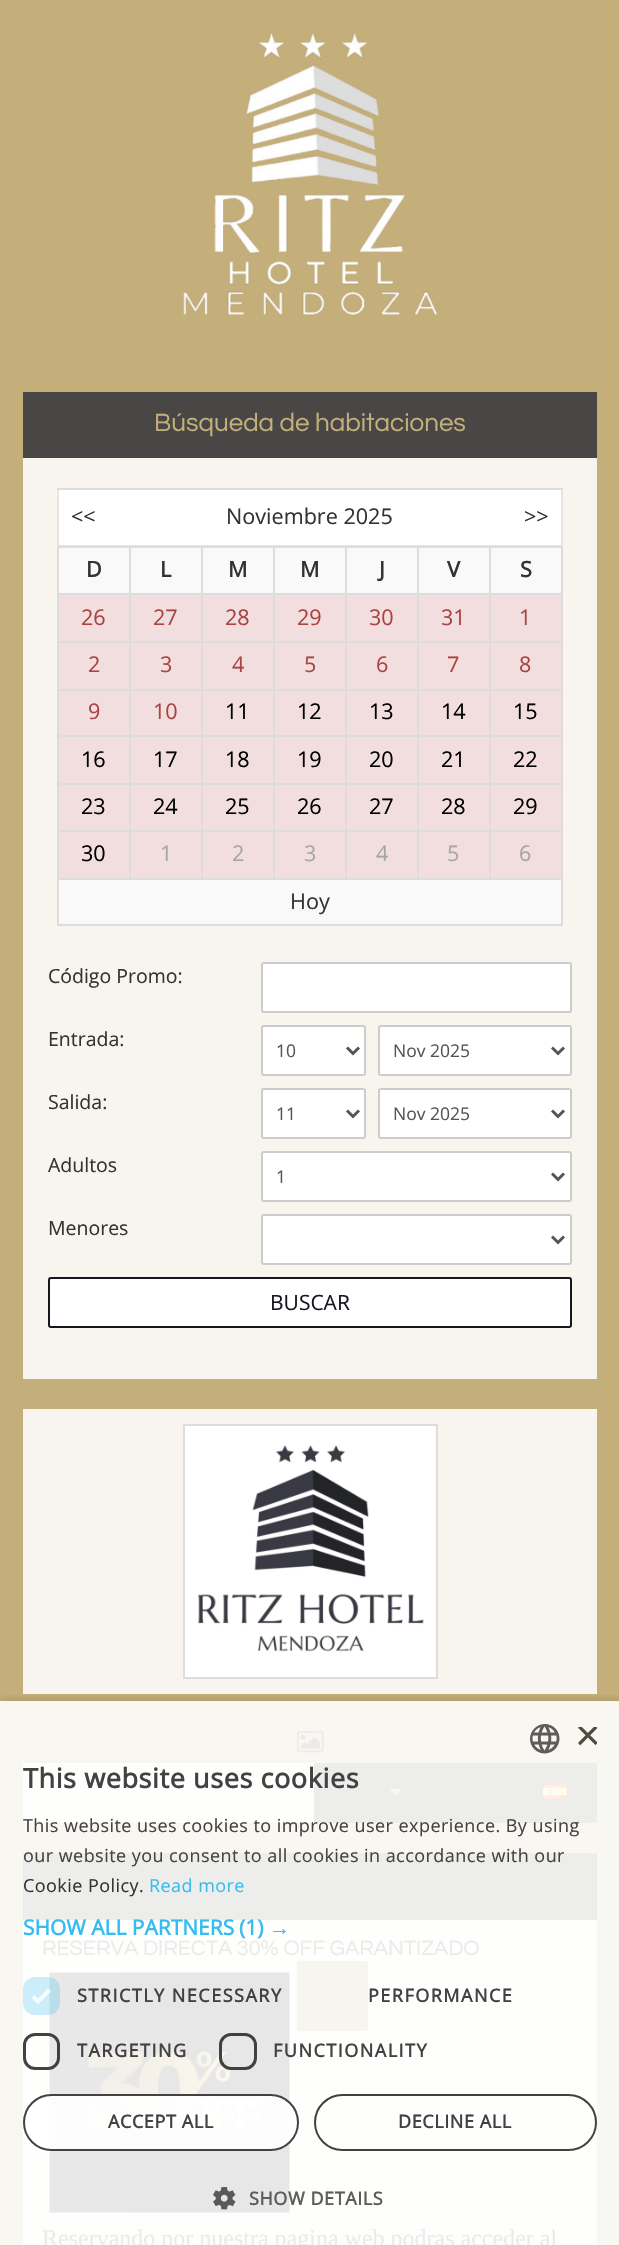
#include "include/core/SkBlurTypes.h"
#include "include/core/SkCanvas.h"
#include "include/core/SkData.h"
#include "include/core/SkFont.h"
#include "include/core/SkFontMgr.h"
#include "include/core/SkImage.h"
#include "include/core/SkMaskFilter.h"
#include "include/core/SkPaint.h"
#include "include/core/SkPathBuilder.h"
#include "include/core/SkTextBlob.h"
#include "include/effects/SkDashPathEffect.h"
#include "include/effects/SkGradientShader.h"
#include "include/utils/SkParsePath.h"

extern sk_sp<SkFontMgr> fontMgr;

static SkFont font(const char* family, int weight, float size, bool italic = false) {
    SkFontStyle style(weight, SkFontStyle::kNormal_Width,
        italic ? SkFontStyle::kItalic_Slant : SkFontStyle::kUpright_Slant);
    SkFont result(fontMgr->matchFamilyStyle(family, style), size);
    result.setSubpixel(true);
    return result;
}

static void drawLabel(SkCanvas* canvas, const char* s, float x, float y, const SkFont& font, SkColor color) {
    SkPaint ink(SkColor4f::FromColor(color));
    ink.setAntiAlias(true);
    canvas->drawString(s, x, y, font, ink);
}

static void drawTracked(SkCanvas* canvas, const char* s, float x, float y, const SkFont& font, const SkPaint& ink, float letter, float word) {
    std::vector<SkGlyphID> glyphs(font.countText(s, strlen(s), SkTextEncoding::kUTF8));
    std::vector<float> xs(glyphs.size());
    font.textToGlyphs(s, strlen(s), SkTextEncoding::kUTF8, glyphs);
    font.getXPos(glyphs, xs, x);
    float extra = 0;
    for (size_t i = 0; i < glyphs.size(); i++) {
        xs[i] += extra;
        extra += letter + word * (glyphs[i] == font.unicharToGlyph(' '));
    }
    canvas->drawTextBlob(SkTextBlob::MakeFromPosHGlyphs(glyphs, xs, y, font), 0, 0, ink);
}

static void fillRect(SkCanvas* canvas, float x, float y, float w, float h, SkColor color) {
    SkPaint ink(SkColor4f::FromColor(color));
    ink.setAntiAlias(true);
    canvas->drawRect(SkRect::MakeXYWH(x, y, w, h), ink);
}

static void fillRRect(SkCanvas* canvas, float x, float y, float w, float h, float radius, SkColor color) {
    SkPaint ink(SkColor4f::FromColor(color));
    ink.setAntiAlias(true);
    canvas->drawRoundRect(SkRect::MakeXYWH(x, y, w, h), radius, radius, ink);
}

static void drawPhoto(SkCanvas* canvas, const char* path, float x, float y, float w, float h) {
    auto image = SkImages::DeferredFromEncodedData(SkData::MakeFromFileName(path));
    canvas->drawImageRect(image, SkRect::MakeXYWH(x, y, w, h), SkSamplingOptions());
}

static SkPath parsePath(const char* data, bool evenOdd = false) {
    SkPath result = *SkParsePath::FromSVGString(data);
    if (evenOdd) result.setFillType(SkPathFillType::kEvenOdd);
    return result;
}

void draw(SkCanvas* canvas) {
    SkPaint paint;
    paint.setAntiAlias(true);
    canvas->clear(0xFFC4AE7A);
    fillRect(canvas, 0, 1701, 619, 544, 0xFFF9F7F2);
    drawPhoto(canvas, "assets/img1.png", 183, 33, 255, 282);
    fillRect(canvas, 23, 392, 574, 66, 0xFF484745);
    SkFont font1 = font("Questrial", 400, 26);
    drawLabel(canvas, "Búsqueda de habitaciones", 154, 431, font1, 0xFFC4AE7A);
    fillRect(canvas, 23, 458, 574, 921, 0xFFF8F5EF);
    fillRect(canvas, 59, 490, 502, 55, 0xFFFFFFFF);
    fillRect(canvas, 561, 488, 2, 58, 0xFFE5E5E5);
    fillRect(canvas, 57, 545, 506, 1, 0xFFE5E5E5);
    fillRect(canvas, 57, 488, 2, 58, 0xFFE5E5E5);
    SkFont font2 = font("Open Sans", 400, 21.6f);
    drawLabel(canvas, "<<", 71, 524, font2, 0xFF333333);
    drawLabel(canvas, "Noviembre 2025", 226, 524, font2, 0xFF333333);
    fillRect(canvas, 57, 488, 506, 2, 0xFFDDDDDD);
    drawLabel(canvas, ">>", 524, 524, font2, 0xFF333333);
    fillRect(canvas, 57, 546, 506, 2, 0xFFDDDDDD);
    fillRect(canvas, 561, 546, 2, 380, 0xFFDDDDDD);
    fillRect(canvas, 57, 924, 506, 2, 0xFFDDDDDD);
    fillRect(canvas, 57, 546, 2, 380, 0xFFDDDDDD);
    fillRect(canvas, 59, 548, 70, 45, 0xFFF9F9F9);
    SkFont font3 = font("Open Sans", 700, 21.6f);
    drawLabel(canvas, "D", 86, 577, font3, 0xFF333333);
    fillRect(canvas, 131, 548, 70, 45, 0xFFF9F9F9);
    fillRect(canvas, 489, 593, 74, 2, 0xFFDDDDDD);
    fillRect(canvas, 489, 641, 74, 2, 0xFFDDDDDD);
    fillRect(canvas, 489, 689, 74, 2, 0xFFDDDDDD);
    fillRect(canvas, 489, 735, 74, 2, 0xFFDDDDDD);
    fillRect(canvas, 489, 783, 74, 2, 0xFFDDDDDD);
    fillRect(canvas, 489, 830, 74, 2, 0xFFDDDDDD);
    fillRect(canvas, 57, 878, 506, 2, 0xFFDDDDDD);
    fillRect(canvas, 489, 830, 2, 49, 0xFFDDDDDD);
    fillRect(canvas, 417, 830, 74, 2, 0xFFDDDDDD);
    fillRect(canvas, 489, 783, 2, 48, 0xFFDDDDDD);
    fillRect(canvas, 417, 783, 74, 2, 0xFFDDDDDD);
    fillRect(canvas, 489, 735, 2, 50, 0xFFDDDDDD);
    fillRect(canvas, 417, 735, 74, 2, 0xFFDDDDDD);
    fillRect(canvas, 489, 689, 2, 48, 0xFFDDDDDD);
    fillRect(canvas, 417, 689, 74, 2, 0xFFDDDDDD);
    fillRect(canvas, 489, 641, 2, 49, 0xFFDDDDDD);
    fillRect(canvas, 417, 641, 74, 2, 0xFFDDDDDD);
    fillRect(canvas, 489, 593, 2, 49, 0xFFDDDDDD);
    fillRect(canvas, 417, 593, 74, 2, 0xFFDDDDDD);
    fillRect(canvas, 417, 830, 2, 49, 0xFFDDDDDD);
    fillRect(canvas, 345, 830, 74, 2, 0xFFDDDDDD);
    fillRect(canvas, 417, 783, 2, 48, 0xFFDDDDDD);
    fillRect(canvas, 345, 783, 74, 2, 0xFFDDDDDD);
    fillRect(canvas, 417, 735, 2, 50, 0xFFDDDDDD);
    fillRect(canvas, 345, 735, 74, 2, 0xFFDDDDDD);
    fillRect(canvas, 417, 689, 2, 48, 0xFFDDDDDD);
    fillRect(canvas, 345, 689, 74, 2, 0xFFDDDDDD);
    fillRect(canvas, 417, 641, 2, 49, 0xFFDDDDDD);
    fillRect(canvas, 345, 641, 74, 2, 0xFFDDDDDD);
    fillRect(canvas, 417, 593, 2, 49, 0xFFDDDDDD);
    fillRect(canvas, 345, 593, 74, 2, 0xFFDDDDDD);
    fillRect(canvas, 345, 830, 2, 49, 0xFFDDDDDD);
    fillRect(canvas, 273, 830, 74, 2, 0xFFDDDDDD);
    fillRect(canvas, 345, 783, 2, 48, 0xFFDDDDDD);
    fillRect(canvas, 273, 783, 74, 2, 0xFFDDDDDD);
    fillRect(canvas, 345, 735, 2, 50, 0xFFDDDDDD);
    fillRect(canvas, 273, 735, 74, 2, 0xFFDDDDDD);
    fillRect(canvas, 345, 689, 2, 48, 0xFFDDDDDD);
    fillRect(canvas, 273, 689, 74, 2, 0xFFDDDDDD);
    fillRect(canvas, 345, 641, 2, 49, 0xFFDDDDDD);
    fillRect(canvas, 273, 641, 74, 2, 0xFFDDDDDD);
    fillRect(canvas, 345, 593, 2, 49, 0xFFDDDDDD);
    fillRect(canvas, 273, 593, 74, 2, 0xFFDDDDDD);
    fillRect(canvas, 273, 830, 2, 49, 0xFFDDDDDD);
    fillRect(canvas, 201, 830, 74, 2, 0xFFDDDDDD);
    fillRect(canvas, 273, 783, 2, 48, 0xFFDDDDDD);
    fillRect(canvas, 201, 783, 74, 2, 0xFFDDDDDD);
    fillRect(canvas, 273, 735, 2, 50, 0xFFDDDDDD);
    fillRect(canvas, 201, 735, 74, 2, 0xFFDDDDDD);
    fillRect(canvas, 273, 689, 2, 48, 0xFFDDDDDD);
    fillRect(canvas, 201, 689, 74, 2, 0xFFDDDDDD);
    fillRect(canvas, 273, 641, 2, 49, 0xFFDDDDDD);
    fillRect(canvas, 201, 641, 74, 2, 0xFFDDDDDD);
    fillRect(canvas, 273, 593, 2, 49, 0xFFDDDDDD);
    fillRect(canvas, 201, 593, 74, 2, 0xFFDDDDDD);
    fillRect(canvas, 201, 830, 2, 49, 0xFFDDDDDD);
    fillRect(canvas, 129, 830, 74, 2, 0xFFDDDDDD);
    fillRect(canvas, 201, 783, 2, 48, 0xFFDDDDDD);
    fillRect(canvas, 129, 783, 74, 2, 0xFFDDDDDD);
    fillRect(canvas, 201, 735, 2, 50, 0xFFDDDDDD);
    fillRect(canvas, 129, 735, 74, 2, 0xFFDDDDDD);
    fillRect(canvas, 201, 689, 2, 48, 0xFFDDDDDD);
    fillRect(canvas, 129, 689, 74, 2, 0xFFDDDDDD);
    fillRect(canvas, 201, 641, 2, 49, 0xFFDDDDDD);
    fillRect(canvas, 129, 641, 74, 2, 0xFFDDDDDD);
    fillRect(canvas, 201, 593, 2, 49, 0xFFDDDDDD);
    fillRect(canvas, 129, 593, 74, 2, 0xFFDDDDDD);
    fillRect(canvas, 129, 830, 2, 49, 0xFFDDDDDD);
    fillRect(canvas, 57, 830, 74, 2, 0xFFDDDDDD);
    fillRect(canvas, 129, 783, 2, 48, 0xFFDDDDDD);
    fillRect(canvas, 57, 783, 74, 2, 0xFFDDDDDD);
    fillRect(canvas, 129, 735, 2, 50, 0xFFDDDDDD);
    fillRect(canvas, 57, 735, 74, 2, 0xFFDDDDDD);
    fillRect(canvas, 129, 689, 2, 48, 0xFFDDDDDD);
    fillRect(canvas, 57, 689, 74, 2, 0xFFDDDDDD);
    fillRect(canvas, 129, 641, 2, 49, 0xFFDDDDDD);
    fillRect(canvas, 57, 641, 74, 2, 0xFFDDDDDD);
    fillRect(canvas, 129, 593, 2, 49, 0xFFDDDDDD);
    fillRect(canvas, 57, 593, 74, 2, 0xFFDDDDDD);
    fillRect(canvas, 129, 546, 2, 48, 0xFFDDDDDD);
    drawLabel(canvas, "L", 160, 577, font3, 0xFF333333);
    fillRect(canvas, 203, 548, 70, 45, 0xFFF9F9F9);
    fillRect(canvas, 201, 546, 2, 48, 0xFFDDDDDD);
    drawLabel(canvas, "M", 228, 577, font3, 0xFF333333);
    fillRect(canvas, 275, 548, 70, 45, 0xFFF9F9F9);
    fillRect(canvas, 273, 546, 2, 48, 0xFFDDDDDD);
    drawLabel(canvas, "M", 300, 577, font3, 0xFF333333);
    fillRect(canvas, 347, 548, 70, 45, 0xFFF9F9F9);
    fillRect(canvas, 345, 546, 2, 48, 0xFFDDDDDD);
    drawLabel(canvas, "J", 379, 577, font3, 0xFF333333);
    fillRect(canvas, 419, 548, 70, 45, 0xFFF9F9F9);
    fillRect(canvas, 417, 546, 2, 48, 0xFFDDDDDD);
    drawLabel(canvas, "V", 447, 577, font3, 0xFF333333);
    fillRect(canvas, 491, 548, 70, 45, 0xFFF9F9F9);
    fillRect(canvas, 489, 546, 2, 48, 0xFFDDDDDD);
    drawLabel(canvas, "S", 520, 577, font3, 0xFF333333);
    fillRect(canvas, 59, 595, 70, 46, 0xFFF2DEDE);
    drawLabel(canvas, "26", 81, 625, font2, 0xFFA94442);
    fillRect(canvas, 131, 595, 70, 46, 0xFFF2DEDE);
    drawLabel(canvas, "27", 153, 625, font2, 0xFFA94442);
    fillRect(canvas, 203, 595, 70, 46, 0xFFF2DEDE);
    drawLabel(canvas, "28", 225, 625, font2, 0xFFA94442);
    fillRect(canvas, 275, 595, 70, 46, 0xFFF2DEDE);
    drawLabel(canvas, "29", 297, 625, font2, 0xFFA94442);
    fillRect(canvas, 347, 595, 70, 46, 0xFFF2DEDE);
    drawLabel(canvas, "30", 369, 625, font2, 0xFFA94442);
    fillRect(canvas, 419, 595, 70, 46, 0xFFF2DEDE);
    drawLabel(canvas, "31", 441, 625, font2, 0xFFA94442);
    fillRect(canvas, 491, 595, 70, 46, 0xFFF2DEDE);
    drawLabel(canvas, "1", 519, 625, font2, 0xFFA94442);
    fillRect(canvas, 59, 643, 70, 46, 0xFFF2DEDE);
    drawLabel(canvas, "2", 88, 672, font2, 0xFFA94442);
    fillRect(canvas, 131, 643, 70, 46, 0xFFF2DEDE);
    drawLabel(canvas, "3", 160, 672, font2, 0xFFA94442);
    fillRect(canvas, 203, 643, 70, 46, 0xFFF2DEDE);
    drawLabel(canvas, "4", 232, 672, font2, 0xFFA94442);
    fillRect(canvas, 275, 643, 70, 46, 0xFFF2DEDE);
    drawLabel(canvas, "5", 304, 672, font2, 0xFFA94442);
    fillRect(canvas, 347, 643, 70, 46, 0xFFF2DEDE);
    drawLabel(canvas, "6", 376, 672, font2, 0xFFA94442);
    fillRect(canvas, 419, 643, 70, 46, 0xFFF2DEDE);
    drawLabel(canvas, "7", 447, 672, font2, 0xFFA94442);
    fillRect(canvas, 491, 643, 70, 46, 0xFFF2DEDE);
    drawLabel(canvas, "8", 519, 672, font2, 0xFFA94442);
    fillRect(canvas, 59, 691, 70, 44, 0xFFF2DEDE);
    drawLabel(canvas, "9", 88, 719, font2, 0xFFA94442);
    fillRect(canvas, 131, 691, 70, 44, 0xFFF2DEDE);
    drawLabel(canvas, "10", 153, 719, font2, 0xFFA94442);
    fillRect(canvas, 203, 691, 70, 44, 0xFFF2DEDE);
    drawLabel(canvas, "11", 225, 719, font2, 0xFF000000);
    fillRect(canvas, 275, 691, 70, 44, 0xFFF2DEDE);
    drawLabel(canvas, "12", 297, 719, font2, 0xFF000000);
    fillRect(canvas, 347, 691, 70, 44, 0xFFF2DEDE);
    drawLabel(canvas, "13", 369, 719, font2, 0xFF000000);
    fillRect(canvas, 419, 691, 70, 44, 0xFFF2DEDE);
    drawLabel(canvas, "14", 441, 719, font2, 0xFF000000);
    fillRect(canvas, 491, 691, 70, 44, 0xFFF2DEDE);
    drawLabel(canvas, "15", 513, 719, font2, 0xFF000000);
    fillRect(canvas, 59, 737, 70, 46, 0xFFF2DEDE);
    drawLabel(canvas, "16", 81, 767, font2, 0xFF000000);
    fillRect(canvas, 131, 737, 70, 46, 0xFFF2DEDE);
    drawLabel(canvas, "17", 153, 767, font2, 0xFF000000);
    fillRect(canvas, 203, 737, 70, 46, 0xFFF2DEDE);
    drawLabel(canvas, "18", 225, 767, font2, 0xFF000000);
    fillRect(canvas, 275, 737, 70, 46, 0xFFF2DEDE);
    drawLabel(canvas, "19", 297, 767, font2, 0xFF000000);
    fillRect(canvas, 347, 737, 70, 46, 0xFFF2DEDE);
    drawLabel(canvas, "20", 369, 767, font2, 0xFF000000);
    fillRect(canvas, 419, 737, 70, 46, 0xFFF2DEDE);
    drawLabel(canvas, "21", 441, 767, font2, 0xFF000000);
    fillRect(canvas, 491, 737, 70, 46, 0xFFF2DEDE);
    drawLabel(canvas, "22", 513, 767, font2, 0xFF000000);
    fillRect(canvas, 59, 785, 70, 45, 0xFFF2DEDE);
    drawLabel(canvas, "23", 81, 814, font2, 0xFF000000);
    fillRect(canvas, 131, 785, 70, 45, 0xFFF2DEDE);
    drawLabel(canvas, "24", 153, 814, font2, 0xFF000000);
    fillRect(canvas, 203, 785, 70, 45, 0xFFF2DEDE);
    drawLabel(canvas, "25", 225, 814, font2, 0xFF000000);
    fillRect(canvas, 275, 785, 70, 45, 0xFFF2DEDE);
    drawLabel(canvas, "26", 297, 814, font2, 0xFF000000);
    fillRect(canvas, 347, 785, 70, 45, 0xFFF2DEDE);
    drawLabel(canvas, "27", 369, 814, font2, 0xFF000000);
    fillRect(canvas, 419, 785, 70, 45, 0xFFF2DEDE);
    drawLabel(canvas, "28", 441, 814, font2, 0xFF000000);
    fillRect(canvas, 491, 785, 70, 45, 0xFFF2DEDE);
    drawLabel(canvas, "29", 513, 814, font2, 0xFF000000);
    fillRect(canvas, 59, 832, 70, 46, 0xFFF2DEDE);
    drawLabel(canvas, "30", 81, 861, font2, 0xFF000000);
    fillRect(canvas, 131, 832, 70, 46, 0xFFF2DEDE);
    drawLabel(canvas, "1", 160, 861, font2, 0xFFA6A6A6);
    fillRect(canvas, 203, 832, 70, 46, 0xFFF2DEDE);
    drawLabel(canvas, "2", 232, 861, font2, 0xFFA6A6A6);
    fillRect(canvas, 275, 832, 70, 46, 0xFFF2DEDE);
    drawLabel(canvas, "3", 304, 861, font2, 0xFFA6A6A6);
    fillRect(canvas, 347, 832, 70, 46, 0xFFF2DEDE);
    drawLabel(canvas, "4", 376, 861, font2, 0xFFA6A6A6);
    fillRect(canvas, 419, 832, 70, 46, 0xFFF2DEDE);
    drawLabel(canvas, "5", 447, 861, font2, 0xFFA6A6A6);
    fillRect(canvas, 491, 832, 70, 46, 0xFFF2DEDE);
    drawLabel(canvas, "6", 519, 861, font2, 0xFFA6A6A6);
    fillRect(canvas, 59, 880, 502, 44, 0xFFF9F9F9);
    drawLabel(canvas, "Hoy", 290, 909, font2, 0xFF333333);
    SkFont font4 = font("Open Sans", 400, 19.5f);
    drawLabel(canvas, "Código Promo:", 48, 983, font4, 0xFF333333);
    paint.setColor(0xFFFFFFFF);
    canvas->drawRoundRect(SkRect::MakeXYWH(262, 963, 309, 49), 2, 2, paint);
    paint.setStroke(true);
    paint.setStrokeWidth(2);
    paint.setColor(0xFFCCCCCC);
    canvas->drawRoundRect(SkRect::MakeXYWH(262, 963, 309, 49), 2, 2, paint);
    drawLabel(canvas, "Entrada:", 48, 1046, font4, 0xFF333333);
    paint.setStroke(false);
    paint.setColor(0xFFFFFFFF);
    canvas->drawRoundRect(SkRect::MakeXYWH(262, 1026, 103, 49), 2, 2, paint);
    paint.setStroke(true);
    paint.setColor(0xFFCCCCCC);
    canvas->drawRoundRect(SkRect::MakeXYWH(262, 1026, 103, 49), 2, 2, paint);
    paint.setStrokeWidth(3);
    paint.setColor(0xFF555555);
    canvas->drawPath(parsePath("M347 1047.5L353 1053.5L359 1047.5"), paint);
    SkFont font5 = font("Open Sans", 400, 17.5f);
    drawLabel(canvas, "10", 276, 1057, font5, 0xFF555555);
    paint.setStroke(false);
    paint.setColor(0xFFFFFFFF);
    canvas->drawRoundRect(SkRect::MakeXYWH(379, 1026, 192, 49), 2, 2, paint);
    paint.setStroke(true);
    paint.setStrokeWidth(2);
    paint.setColor(0xFFCCCCCC);
    canvas->drawRoundRect(SkRect::MakeXYWH(379, 1026, 192, 49), 2, 2, paint);
    paint.setStrokeWidth(3);
    paint.setColor(0xFF555555);
    canvas->drawPath(parsePath("M552 1047.5L558 1053.5L564 1047.5"), paint);
    drawLabel(canvas, "Nov 2025", 393, 1057, font5, 0xFF555555);
    drawLabel(canvas, "Salida:", 48, 1109, font4, 0xFF333333);
    paint.setStroke(false);
    paint.setColor(0xFFFFFFFF);
    canvas->drawRoundRect(SkRect::MakeXYWH(262, 1089, 103, 49), 2, 2, paint);
    paint.setStroke(true);
    paint.setStrokeWidth(2);
    paint.setColor(0xFFCCCCCC);
    canvas->drawRoundRect(SkRect::MakeXYWH(262, 1089, 103, 49), 2, 2, paint);
    paint.setStrokeWidth(3);
    paint.setColor(0xFF555555);
    canvas->drawPath(parsePath("M347 1110.5L353 1116.5L359 1110.5"), paint);
    drawLabel(canvas, "11", 276, 1120, font5, 0xFF555555);
    paint.setStroke(false);
    paint.setColor(0xFFFFFFFF);
    canvas->drawRoundRect(SkRect::MakeXYWH(379, 1089, 192, 49), 2, 2, paint);
    paint.setStroke(true);
    paint.setStrokeWidth(2);
    paint.setColor(0xFFCCCCCC);
    canvas->drawRoundRect(SkRect::MakeXYWH(379, 1089, 192, 49), 2, 2, paint);
    paint.setStrokeWidth(3);
    paint.setColor(0xFF555555);
    canvas->drawPath(parsePath("M552 1110.5L558 1116.5L564 1110.5"), paint);
    drawLabel(canvas, "Nov 2025", 393, 1120, font5, 0xFF555555);
    drawLabel(canvas, "Adultos", 48, 1172, font4, 0xFF333333);
    paint.setStroke(false);
    paint.setColor(0xFFFFFFFF);
    canvas->drawRoundRect(SkRect::MakeXYWH(262, 1152, 309, 49), 2, 2, paint);
    paint.setStroke(true);
    paint.setStrokeWidth(2);
    paint.setColor(0xFFCCCCCC);
    canvas->drawRoundRect(SkRect::MakeXYWH(262, 1152, 309, 49), 2, 2, paint);
    paint.setStrokeWidth(3);
    paint.setColor(0xFF555555);
    canvas->drawPath(parsePath("M552 1173.5L558 1179.5L564 1173.5"), paint);
    drawLabel(canvas, "1", 276, 1183, font5, 0xFF555555);
    drawLabel(canvas, "Menores", 48, 1235, font4, 0xFF333333);
    paint.setStroke(false);
    paint.setColor(0xFFFFFFFF);
    canvas->drawRoundRect(SkRect::MakeXYWH(262, 1215, 309, 49), 2, 2, paint);
    paint.setStroke(true);
    paint.setStrokeWidth(2);
    paint.setColor(0xFFCCCCCC);
    canvas->drawRoundRect(SkRect::MakeXYWH(262, 1215, 309, 49), 2, 2, paint);
    paint.setStrokeWidth(3);
    paint.setColor(0xFF555555);
    canvas->drawPath(parsePath("M552 1236.5L558 1242.5L564 1236.5"), paint);
    paint.setStroke(false);
    paint.setColor(0xFFFFFFFF);
    canvas->drawRoundRect(SkRect::MakeXYWH(49, 1278, 522, 49), 2, 2, paint);
    paint.setStroke(true);
    paint.setStrokeWidth(2);
    paint.setColor(0xFF16161E);
    canvas->drawRoundRect(SkRect::MakeXYWH(49, 1278, 522, 49), 2, 2, paint);
    SkFont font6 = font("Open Sans", 400, 21);
    drawLabel(canvas, "BUSCAR", 270, 1310, font6, 0xFF16161E);
    fillRect(canvas, 23, 1409, 574, 285, 0xFFF8F5EF);
    paint.setStroke(false);
    paint.setColor(0xFFFFFFFF);
    canvas->drawRect(SkRect::MakeXYWH(184, 1425, 253, 253), paint);
    paint.setStroke(true);
    paint.setColor(0xFFDDDDDD);
    canvas->drawRect(SkRect::MakeXYWH(184, 1425, 253, 253), paint);
    drawPhoto(canvas, "assets/img2.png", 197, 1445, 227, 207);
    drawPhoto(canvas, "assets/img3.png", 297, 1731, 27, 22);
    fillRect(canvas, 23, 1763, 291, 60, 0xFFFEFEFD);
    fillRect(canvas, 314, 1763, 283, 60, 0xFFEDEDEC);
    drawPhoto(canvas, "assets/img4.png", 390, 1788, 12, 7);
    drawPhoto(canvas, "assets/img5.png", 543, 1783, 24, 17);
    fillRect(canvas, 23, 1853, 574, 67, 0xFFEDEDEC);
    fillRect(canvas, 23, 1920, 574, 325, 0xFFFEFEFD);
    SkFont font7 = font("Questrial", 400, 21.6f);
    drawLabel(canvas, "RESERVA DIRECTA 30% OFF GARANTIZADO", 42, 1955, font7, 0xFFEBEBEB);
    drawPhoto(canvas, "assets/img6.png", 49, 1972, 241, 241);
    SkFont font8 = font("Liberation Serif", 400, 24);
    drawLabel(canvas, "Reservando por nuestra pagina web podras acceder al", 42, 2246, font8, 0xFFEBEBEB);
    canvas->save();
    canvas->clipRect(SkRect::MakeXYWH(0, 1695, 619, 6));
    paint.setStroke(false);
    paint.setColor(0x52000000);
    paint.setMaskFilter(SkMaskFilter::MakeBlur(kNormal_SkBlurStyle, 6));
    canvas->drawRect(SkRect::MakeXYWH(2, 1704, 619, 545), paint);
    paint.setMaskFilter(nullptr);
    canvas->restore();
    drawPhoto(canvas, "assets/img7.png", 530, 1724, 30, 30);
    canvas->save();
    canvas->clipRect(SkRect::MakeXYWH(575, 1727, 22, 22));
    SkFont font9 = font("Liberation Sans", 400, 44);
    drawLabel(canvas, "×", 575, 1750, font9, 0xFF504B3F);
    canvas->restore();
    SkFont font10 = font("Open Sans", 700, 27);
    paint.setColor(0xFF424242);
    drawTracked(canvas, "This website uses cookies", 23, 1788, font10, paint, 0.6f, 0);
    SkFont font11 = font("Open Sans", 400, 18);
    drawTracked(canvas, "This website uses cookies to improve user experience. By using", 23, 1832, font11, paint, 0.45f, 0);
    drawTracked(canvas, "our website you consent to all cookies in accordance with our", 23, 1862, font11, paint, 0.45f, 0);
    paint.setColor(0xFF333333);
    drawTracked(canvas, "Cookie Policy.", 23, 1892, font11, paint, 0.45f, 0);
    paint.setColor(0xFF36BDF0);
    drawTracked(canvas, "Read more", 149, 1892, font11, paint, 0.45f, 0);
    SkFont font12 = font("Open Sans", 700, 21);
    drawLabel(canvas, "SHOW ALL PARTNERS", 23, 1935, font12, 0xFF36BDF0);
    drawLabel(canvas, "(1)", 239, 1935, font12, 0xFF36BDF0);
    SkFont font13 = font("Liberation Sans", 700, 21);
    drawLabel(canvas, "→", 269, 1935, font13, 0xFF36BDF0);
    fillRRect(canvas, 23, 1977, 37, 38, 12, 0x3B22B8F0);
    paint.setStroke(true);
    paint.setStrokeWidth(3.9f);
    paint.setColor(0xE6FFFFFF);
    canvas->drawPath(parsePath("M33 1996.5L38 2001.5L49.5 1990"), paint);
    SkFont font14 = font("Open Sans", 700, 18);
    paint.setStroke(false);
    paint.setColor(0xFF424242);
    drawTracked(canvas, "STRICTLY NECESSARY", 77, 2002, font14, paint, 1.5f, 0);
    paint.setColor(0xFFF8F5EF);
    canvas->drawRoundRect(SkRect::MakeXYWH(298, 1962, 69, 68), 2, 2, paint);
    paint.setStroke(true);
    paint.setStrokeWidth(2);
    canvas->drawRoundRect(SkRect::MakeXYWH(298, 1962, 69, 68), 2, 2, paint);
    paint.setStroke(false);
    paint.setColor(0xFF424242);
    drawTracked(canvas, "PERFORMANCE", 368, 2002, font14, paint, 1.5f, 0);
    paint.setStroke(true);
    paint.setStrokeWidth(3);
    paint.setColor(0xE62D2D2D);
    canvas->drawRoundRect(SkRect::MakeXYWH(24.5f, 2034.5f, 34, 34), 10.5f, 10.5f, paint);
    paint.setStroke(false);
    paint.setColor(0xFF424242);
    drawTracked(canvas, "TARGETING", 77, 2057, font14, paint, 1.5f, 0);
    paint.setStroke(true);
    paint.setColor(0xE62D2D2D);
    canvas->drawRoundRect(SkRect::MakeXYWH(220.5f, 2034.5f, 35, 34), 10.5f, 10.5f, paint);
    paint.setStroke(false);
    paint.setColor(0xFF424242);
    drawTracked(canvas, "FUNCTIONALITY", 273, 2057, font14, paint, 1.5f, 0);
    fillRRect(canvas, 23, 2094, 276, 57, 28.5f, 0xE6FFFFFF);
    paint.setStroke(true);
    paint.setStrokeWidth(2);
    paint.setColor(0xE62D2D2D);
    canvas->drawRoundRect(SkRect::MakeXYWH(24, 2095, 274, 55), 27.5f, 27.5f, paint);
    paint.setStroke(false);
    paint.setColor(0xFF424242);
    drawTracked(canvas, "ACCEPT ALL", 108, 2128, font14, paint, 0.6f, 0);
    paint.setStroke(true);
    paint.setColor(0xFF414140);
    canvas->drawRoundRect(SkRect::MakeXYWH(315, 2095, 281, 55), 27.5f, 27.5f, paint);
    paint.setStroke(false);
    paint.setColor(0xFF424242);
    drawTracked(canvas, "DECLINE ALL", 398, 2128, font14, paint, 0.6f, 0);
    drawPhoto(canvas, "assets/img8.png", 213, 2187, 23, 23);
    paint.setColor(0xFF5D5D5C);
    drawTracked(canvas, "SHOW DETAILS", 249, 2205, font14, paint, 0.6f, 0);
}
